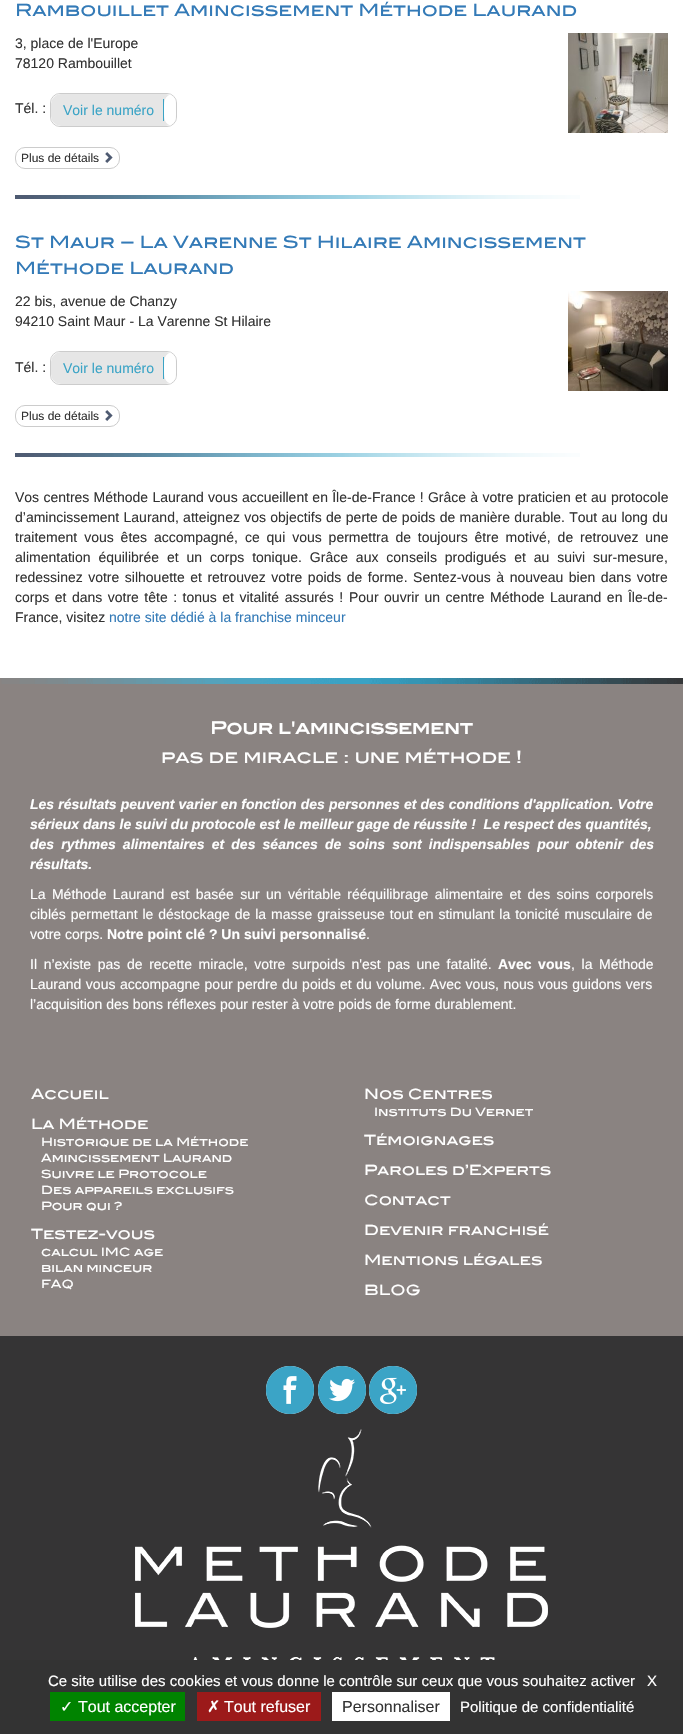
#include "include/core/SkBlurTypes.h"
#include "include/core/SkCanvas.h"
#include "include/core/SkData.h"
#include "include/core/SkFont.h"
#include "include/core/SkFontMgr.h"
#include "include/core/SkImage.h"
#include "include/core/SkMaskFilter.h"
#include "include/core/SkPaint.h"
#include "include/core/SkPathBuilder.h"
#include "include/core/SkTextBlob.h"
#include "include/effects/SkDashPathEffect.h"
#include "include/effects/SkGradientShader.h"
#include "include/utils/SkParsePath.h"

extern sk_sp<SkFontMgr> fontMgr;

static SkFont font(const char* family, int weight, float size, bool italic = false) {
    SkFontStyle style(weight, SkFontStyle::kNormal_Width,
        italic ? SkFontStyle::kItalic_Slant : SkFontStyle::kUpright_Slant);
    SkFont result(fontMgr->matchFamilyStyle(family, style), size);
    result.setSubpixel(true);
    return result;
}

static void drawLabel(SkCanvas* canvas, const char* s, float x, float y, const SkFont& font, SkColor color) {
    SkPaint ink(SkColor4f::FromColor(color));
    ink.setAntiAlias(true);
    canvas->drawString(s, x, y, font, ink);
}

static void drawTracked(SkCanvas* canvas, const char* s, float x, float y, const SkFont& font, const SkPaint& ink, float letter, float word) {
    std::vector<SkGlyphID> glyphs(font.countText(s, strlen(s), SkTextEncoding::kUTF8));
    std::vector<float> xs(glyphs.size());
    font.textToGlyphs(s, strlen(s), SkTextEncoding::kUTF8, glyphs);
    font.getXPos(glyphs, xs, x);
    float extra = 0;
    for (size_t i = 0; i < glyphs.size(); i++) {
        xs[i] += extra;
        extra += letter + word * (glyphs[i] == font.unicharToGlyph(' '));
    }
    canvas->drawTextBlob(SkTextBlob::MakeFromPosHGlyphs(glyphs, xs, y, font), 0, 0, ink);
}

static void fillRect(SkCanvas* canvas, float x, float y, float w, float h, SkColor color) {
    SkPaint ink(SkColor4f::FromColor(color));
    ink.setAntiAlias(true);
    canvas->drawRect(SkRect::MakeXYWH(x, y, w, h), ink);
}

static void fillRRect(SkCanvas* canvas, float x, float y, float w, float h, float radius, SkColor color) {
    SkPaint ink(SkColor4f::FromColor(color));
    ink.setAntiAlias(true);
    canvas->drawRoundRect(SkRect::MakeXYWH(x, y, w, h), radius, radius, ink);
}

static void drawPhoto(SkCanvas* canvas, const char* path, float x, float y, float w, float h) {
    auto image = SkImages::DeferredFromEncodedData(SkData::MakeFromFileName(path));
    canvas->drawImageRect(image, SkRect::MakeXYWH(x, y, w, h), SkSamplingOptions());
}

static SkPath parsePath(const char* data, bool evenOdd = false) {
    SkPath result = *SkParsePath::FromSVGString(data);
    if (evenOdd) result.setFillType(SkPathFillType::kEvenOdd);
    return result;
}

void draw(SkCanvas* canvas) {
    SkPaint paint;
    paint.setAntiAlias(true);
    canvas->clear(0xFFFFFFFF);
    drawPhoto(canvas, "assets/img1.png", 15, 195, 565, 4);
    SkFont font1 = font("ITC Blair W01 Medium", 500, 17);
    drawLabel(canvas, "Rambouillet Amincissement Méthode Laurand", 15, 16, font1, 0xFF337AB7);
    SkFont font2 = font("Liberation Sans", 400, 14);
    drawLabel(canvas, "3, place de l'Europe", 15, 48, font2, 0xFF333333);
    drawLabel(canvas, "78120 Rambouillet", 15, 68, font2, 0xFF333333);
    drawPhoto(canvas, "assets/img2.png", 568, 33, 100, 100);
    drawLabel(canvas, "Tél. :", 15, 113, font2, 0xFF333333);
    paint.setStroke(true);
    paint.setStrokeWidth(1);
    paint.setColor(0xFFCCCCCC);
    canvas->drawRoundRect(SkRect::MakeXYWH(50.5f, 93.5f, 126, 33), 9.5f, 9.5f, paint);
    canvas->save();
    canvas->clipPath(parsePath("M60 94H167C172 94 176 98 176 103V117C176 122 172 126 167 126H60C55 126 51 122 51 117V103C51 98 55 94 60 94Z"), true);
    fillRRect(canvas, 51, 94, 125, 32, 10, 0xFFE6E6E6);
    canvas->restore();
    drawLabel(canvas, "Voir le numéro", 63, 115, font2, 0xFF3BA4C6);
    paint.setStroke(false);
    paint.setColor(0xFFFFFFFF);
    canvas->drawPath(parsePath("M170 94.5C177 97 176 104 176 110C176 116 177 123 170 125.5C163.5 123 164 116 164 110C164 104 163.5 97 170 94.5Z"), paint);
    fillRect(canvas, 163, 99, 1, 22, 0xFF3BA4C6);
    paint.setStroke(true);
    paint.setColor(0xFFCCCCCC);
    canvas->drawRoundRect(SkRect::MakeXYWH(15.5f, 147.5f, 104, 21), 9.5f, 9.5f, paint);
    SkFont font3 = font("Liberation Sans", 400, 12);
    drawLabel(canvas, "Plus de détails", 21, 162, font3, 0xFF333333);
    drawPhoto(canvas, "assets/img3.png", 105, 152, 8, 11);
    drawPhoto(canvas, "assets/img1.png", 15, 453, 565, 4);
    drawLabel(canvas, "St Maur – La Varenne St Hilaire Amincissement", 15, 248, font1, 0xFF337AB7);
    drawLabel(canvas, "Méthode Laurand", 15, 274, font1, 0xFF337AB7);
    drawLabel(canvas, "22 bis, avenue de Chanzy", 15, 306, font2, 0xFF333333);
    drawLabel(canvas, "94210 Saint Maur - La Varenne St Hilaire", 15, 326, font2, 0xFF333333);
    drawPhoto(canvas, "assets/img4.png", 568, 291, 100, 100);
    drawLabel(canvas, "Tél. :", 15, 372, font2, 0xFF333333);
    canvas->drawRoundRect(SkRect::MakeXYWH(50.5f, 351.5f, 126, 33), 9.5f, 9.5f, paint);
    canvas->save();
    canvas->clipPath(parsePath("M60 352H167C172 352 176 356 176 361V375C176 380 172 384 167 384H60C55 384 51 380 51 375V361C51 356 55 352 60 352Z"), true);
    fillRRect(canvas, 51, 352, 125, 32, 10, 0xFFE6E6E6);
    canvas->restore();
    drawLabel(canvas, "Voir le numéro", 63, 373, font2, 0xFF3BA4C6);
    paint.setStroke(false);
    paint.setColor(0xFFFFFFFF);
    canvas->drawPath(parsePath("M170 352.5C177 355 176 362 176 368C176 374 177 381 170 383.5C163.5 381 164 374 164 368C164 362 163.5 355 170 352.5Z"), paint);
    fillRect(canvas, 163, 357, 1, 22, 0xFF3BA4C6);
    paint.setStroke(true);
    paint.setColor(0xFFCCCCCC);
    canvas->drawRoundRect(SkRect::MakeXYWH(15.5f, 405.5f, 104, 21), 9.5f, 9.5f, paint);
    drawLabel(canvas, "Plus de détails", 21, 420, font3, 0xFF333333);
    drawPhoto(canvas, "assets/img3.png", 105, 410, 8, 11);
    paint.setStroke(false);
    paint.setColor(0xFF333333);
    drawTracked(canvas, "Vos centres Méthode Laurand vous accueillent en Île-de-France ! Grâce à votre praticien et au protocole", 15, 502, font2, paint, 0, 0.4f);
    drawTracked(canvas, "d’amincissement Laurand, atteignez vos objectifs de perte de poids de manière durable. Tout au long du", 15, 522, font2, paint, 0, 0.4f);
    drawTracked(canvas, "traitement vous êtes accompagné, ce qui vous permettra de toujours être motivé, de retrouvez une", 15, 542, font2, paint, 0, 3);
    drawTracked(canvas, "alimentation équilibrée et un corps tonique. Grâce aux conseils prodigués et au suivi sur-mesure,", 15, 562, font2, paint, 0, 4);
    drawTracked(canvas, "redessinez votre silhouette et retrouvez votre poids de forme. Sentez-vous à nouveau bien dans votre", 15, 582, font2, paint, 0, 1.6f);
    drawTracked(canvas, "corps et dans votre tête : tonus et vitalité assurés !", 15, 602, font2, paint, 0, 1.6f);
    drawTracked(canvas, "Pour ouvrir un centre Méthode Laurand en Île-de-", 349, 602, font2, paint, 0, 1.6f);
    drawLabel(canvas, "France, visitez", 15, 622, font2, 0xFF333333);
    drawLabel(canvas, "notre site dédié à la franchise minceur", 109, 622, font2, 0xFF337AB7);
    fillRect(canvas, 0, 684, 683, 652, 0xFF8A8381);
    drawPhoto(canvas, "assets/img5.png", 0, 678, 683, 6);
    SkFont font4 = font("ITC Blair W01 Medium", 700, 17);
    drawLabel(canvas, "Pour l'amincissement", 210, 734, font4, 0xFFFFFFFF);
    drawLabel(canvas, "pas de miracle : une méthode !", 161, 763, font1, 0xFFFFFFFF);
    SkFont font5 = font("Liberation Sans", 700, 14, true);
    paint.setColor(0xFFFFFFFF);
    drawTracked(canvas, "Les résultats peuvent varier en fonction des personnes et des conditions d'application. Votre", 30, 809, font5, paint, 0, 0.25f);
    drawLabel(canvas, "sérieux dans le suivi du protocole est le meilleur gage de réussite !  Le respect des quantités,", 30, 829, font5, 0xFFFFFFFF);
    drawTracked(canvas, "des rythmes alimentaires et des séances de soins sont indispensables pour obtenir des", 30, 849, font5, paint, 0, 3.25f);
    drawLabel(canvas, "résultats.", 30, 869, font5, 0xFFFFFFFF);
    drawTracked(canvas, "La Méthode Laurand est basée sur un véritable rééquilibrage alimentaire et des soins corporels", 30, 899, font2, paint, 0, 2.5f);
    drawTracked(canvas, "ciblés permettant le déstockage de la masse graisseuse tout en stimulant la tonicité musculaire de", 30, 919, font2, paint, 0, 1);
    drawLabel(canvas, "votre corps.", 30, 939, font2, 0xFFFFFFFF);
    SkFont font6 = font("Liberation Sans", 700, 14);
    drawLabel(canvas, "Notre point clé ? Un suivi personnalisé", 107, 939, font6, 0xFFFFFFFF);
    drawLabel(canvas, ".", 366, 939, font2, 0xFFFFFFFF);
    drawTracked(canvas, "Il n’existe pas de recette miracle, votre surpoids n'est pas une fatalité.", 30, 969, font2, paint, 0, 2.75f);
    drawTracked(canvas, "Avec vous", 498, 969, font6, paint, 0, 2.75f);
    drawTracked(canvas, ", la Méthode", 571, 969, font2, paint, 0, 2.75f);
    drawTracked(canvas, "Laurand vous accompagne pour perdre du poids et du volume. Avec vous, nous vous guidons vers", 30, 989, font2, paint, 0, 0.6f);
    drawLabel(canvas, "l’acquisition des bons réflexes pour rester à votre poids de forme durablement.", 30, 1009, font2, 0xFFFFFFFF);
    SkFont font7 = font("ITC Blair W01 Medium", 500, 14);
    drawLabel(canvas, "Accueil", 31, 1099, font7, 0xFFFFFFFF);
    drawLabel(canvas, "Nos Centres", 364, 1099, font7, 0xFFFFFFFF);
    SkFont font8 = font("ITC Blair W01 Medium", 500, 11.25f);
    drawLabel(canvas, "Instituts Du Vernet", 374, 1116, font8, 0xFFFFFFFF);
    drawLabel(canvas, "La Méthode", 31, 1129, font7, 0xFFFFFFFF);
    drawLabel(canvas, "Historique de la Méthode", 41, 1146, font8, 0xFFFFFFFF);
    drawLabel(canvas, "Amincissement Laurand", 41, 1162, font8, 0xFFFFFFFF);
    drawLabel(canvas, "Suivre le Protocole", 41, 1178, font8, 0xFFFFFFFF);
    drawLabel(canvas, "Des appareils exclusifs", 41, 1194, font8, 0xFFFFFFFF);
    drawLabel(canvas, "Pour qui ?", 41, 1210, font8, 0xFFFFFFFF);
    drawLabel(canvas, "Témoignages", 364, 1145, font7, 0xFFFFFFFF);
    drawLabel(canvas, "Paroles d’Experts", 364, 1175, font7, 0xFFFFFFFF);
    drawLabel(canvas, "Contact", 364, 1205, font7, 0xFFFFFFFF);
    drawLabel(canvas, "Testez-vous", 31, 1239, font7, 0xFFFFFFFF);
    drawLabel(canvas, "calcul IMC age", 41, 1256, font8, 0xFFFFFFFF);
    drawLabel(canvas, "bilan minceur", 41, 1272, font8, 0xFFFFFFFF);
    drawLabel(canvas, "FAQ", 41, 1288, font8, 0xFFFFFFFF);
    drawLabel(canvas, "Devenir franchisé", 364, 1235, font7, 0xFFFFFFFF);
    drawLabel(canvas, "Mentions légales", 364, 1265, font7, 0xFFFFFFFF);
    drawLabel(canvas, "BLOG", 364, 1295, font7, 0xFFFFFFFF);
    fillRect(canvas, 0, 1336, 683, 324, 0xFF353435);
    drawPhoto(canvas, "assets/img6.png", 266, 1366, 48, 48);
    drawPhoto(canvas, "assets/img7.png", 318, 1366, 48, 48);
    drawPhoto(canvas, "assets/img8.png", 369, 1366, 48, 48);
    drawPhoto(canvas, "assets/img9.png", 135, 1429, 413, 231);
    fillRect(canvas, 0, 1660, 683, 74, 0xFF333333);
    SkFont font9 = font("Liberation Sans", 400, 15);
    drawLabel(canvas, "Ce site utilise des cookies et vous donne le contrôle sur ceux que vous souhaitez activer", 48, 1686, font9, 0xFFFFFFFF);
    drawLabel(canvas, "X", 647, 1686, font9, 0xFFFFFFFF);
    fillRect(canvas, 50, 1692, 135, 29, 0xFF008300);
    SkFont font10 = font("DejaVu Sans", 400, 16);
    drawLabel(canvas, "✓", 60, 1712, font10, 0xFFFFFFFF);
    SkFont font11 = font("Liberation Sans", 400, 16);
    drawLabel(canvas, "Tout accepter", 78, 1712, font11, 0xFFFFFFFF);
    fillRect(canvas, 197, 1692, 124, 29, 0xFF9C1A1A);
    drawLabel(canvas, "✗", 207, 1712, font10, 0xFFFFFFFF);
    drawLabel(canvas, "Tout refuser", 224, 1712, font11, 0xFFFFFFFF);
    fillRect(canvas, 332, 1692, 118, 29, 0xFFFFFFFF);
    drawLabel(canvas, "Personnaliser", 342, 1712, font11, 0xFF333333);
    drawLabel(canvas, "Politique de confidentialité", 460, 1712, font9, 0xFFFFFFFF);
}
